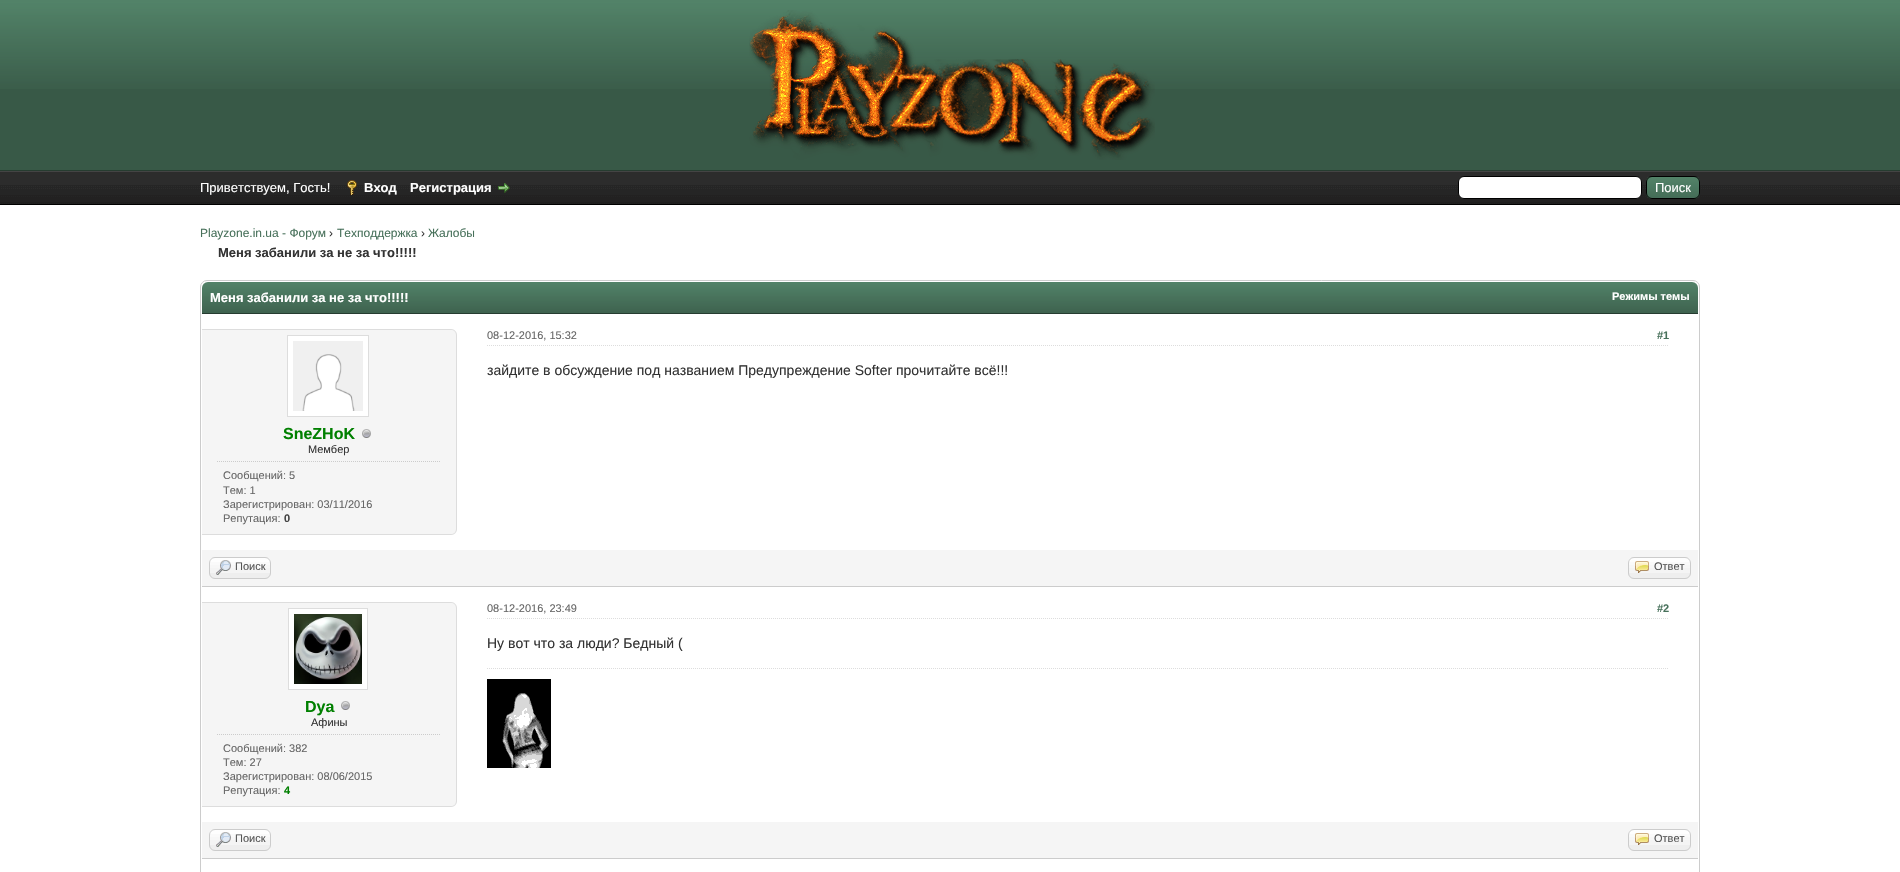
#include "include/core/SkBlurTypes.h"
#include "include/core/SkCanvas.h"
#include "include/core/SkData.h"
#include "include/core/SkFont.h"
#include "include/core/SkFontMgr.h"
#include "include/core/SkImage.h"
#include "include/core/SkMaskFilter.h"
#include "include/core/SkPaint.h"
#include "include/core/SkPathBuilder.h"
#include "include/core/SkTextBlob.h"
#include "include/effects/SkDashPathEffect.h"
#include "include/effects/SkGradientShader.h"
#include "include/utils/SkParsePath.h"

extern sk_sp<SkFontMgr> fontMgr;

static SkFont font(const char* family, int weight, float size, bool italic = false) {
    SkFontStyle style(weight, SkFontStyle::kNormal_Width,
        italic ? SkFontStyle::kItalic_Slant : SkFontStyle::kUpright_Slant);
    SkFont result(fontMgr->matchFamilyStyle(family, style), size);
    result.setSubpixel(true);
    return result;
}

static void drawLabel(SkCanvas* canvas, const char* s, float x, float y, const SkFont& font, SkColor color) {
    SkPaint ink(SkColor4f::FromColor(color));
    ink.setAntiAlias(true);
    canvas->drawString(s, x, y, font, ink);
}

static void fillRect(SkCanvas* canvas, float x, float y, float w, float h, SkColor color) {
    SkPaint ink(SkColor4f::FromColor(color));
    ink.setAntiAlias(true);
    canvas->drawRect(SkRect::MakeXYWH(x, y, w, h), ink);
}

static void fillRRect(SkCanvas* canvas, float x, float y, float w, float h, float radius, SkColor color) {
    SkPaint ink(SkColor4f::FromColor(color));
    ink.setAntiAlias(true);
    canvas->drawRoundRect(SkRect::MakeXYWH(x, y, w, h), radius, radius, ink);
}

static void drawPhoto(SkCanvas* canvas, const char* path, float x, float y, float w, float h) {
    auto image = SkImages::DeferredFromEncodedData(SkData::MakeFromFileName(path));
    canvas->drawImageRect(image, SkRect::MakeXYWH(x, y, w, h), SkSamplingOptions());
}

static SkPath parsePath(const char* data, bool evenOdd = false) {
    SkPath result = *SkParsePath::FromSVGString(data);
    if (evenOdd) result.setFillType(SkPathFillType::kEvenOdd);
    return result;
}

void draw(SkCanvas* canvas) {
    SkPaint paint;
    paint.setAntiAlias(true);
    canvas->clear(0xFF385947);
    drawPhoto(canvas, "assets/img1.png", 0, 0, 1900, 89);
    fillRect(canvas, 0, 170, 1900, 1, 0xFF263C30);
    drawPhoto(canvas, "assets/img2.png", 749, 10, 406, 150);
    drawPhoto(canvas, "assets/img3.png", 0, 172, 1900, 32);
    fillRect(canvas, 0, 171, 1900, 1, 0xFF444444);
    fillRect(canvas, 0, 204, 1900, 1, 0xFF000000);
    SkFont font1 = font("Liberation Sans", 400, 13);
    drawLabel(canvas, "Приветствуем, Гость!", 200, 192, font1, 0xFFFFFFFF);
    drawPhoto(canvas, "assets/img4.png", 347, 180, 10, 15);
    SkFont font2 = font("Liberation Sans", 700, 13);
    drawLabel(canvas, "Вход", 364, 192, font2, 0xFFFFFFFF);
    drawLabel(canvas, "Регистрация", 410, 192, font2, 0xFFFFFFFF);
    drawPhoto(canvas, "assets/img5.png", 498, 183, 12, 10);
    paint.setColor(0xFFFFFFFF);
    canvas->drawRoundRect(SkRect::MakeXYWH(1458.5f, 176.5f, 183, 22), 5.5f, 5.5f, paint);
    paint.setStroke(true);
    paint.setStrokeWidth(1);
    paint.setColor(0xFF000000);
    canvas->drawRoundRect(SkRect::MakeXYWH(1458.5f, 176.5f, 183, 22), 5.5f, 5.5f, paint);
    drawPhoto(canvas, "assets/img6.png", 1646, 177, 54, 22);
    canvas->drawRoundRect(SkRect::MakeXYWH(1646.5f, 176.5f, 53, 22), 5.5f, 5.5f, paint);
    drawLabel(canvas, "Поиск", 1655, 192, font1, 0xFFFFFFFF);
    fillRect(canvas, 0, 205, 1900, 667, 0xFFFFFFFF);
    SkFont font3 = font("Liberation Sans", 400, 12);
    drawLabel(canvas, "Playzone.in.ua - Форум", 200, 237, font3, 0xFF48715B);
    drawLabel(canvas, "›", 329, 237, font3, 0xFF333333);
    drawLabel(canvas, "Техподдержка", 337, 237, font3, 0xFF48715B);
    drawLabel(canvas, "›", 421, 237, font3, 0xFF333333);
    drawLabel(canvas, "Жалобы", 428, 237, font3, 0xFF48715B);
    drawLabel(canvas, "Меня забанили за не за что!!!!!", 218, 257, font2, 0xFF333333);
    paint.setColor(0xFFCCCCCC);
    canvas->drawRoundRect(SkRect::MakeXYWH(200.5f, 280.5f, 1499, 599), 6.5f, 6.5f, paint);
    drawPhoto(canvas, "assets/img7.png", 202, 282, 1496, 31);
    fillRect(canvas, 202, 313, 1496, 1, 0xFF263C30);
    drawLabel(canvas, "Меня забанили за не за что!!!!!", 210, 302, font2, 0xFFFFFFFF);
    SkFont font4 = font("Liberation Sans", 700, 11);
    drawLabel(canvas, "Режимы темы", 1612, 300, font4, 0xFFFFFFFF);
    paint.setColor(0xFFDDDDDD);
    paint.setPathEffect(SkDashPathEffect::Make({{1, 1}}, 0));
    canvas->drawPath(parsePath("M487 345.5H1669"), paint);
    paint.setPathEffect(nullptr);
    SkFont font5 = font("Liberation Sans", 400, 11);
    drawLabel(canvas, "08-12-2016, 15:32", 487, 339, font5, 0xFF666666);
    drawLabel(canvas, "#1", 1657, 339, font4, 0xFF48715B);
    SkFont font6 = font("Liberation Sans", 400, 14);
    drawLabel(canvas, "зайдите в обсуждение под названием Предупреждение Softer прочитайте всё!!!", 487, 375, font6, 0xFF333333);
    paint.setStroke(false);
    paint.setColor(0xFFF5F5F5);
    canvas->drawPath(parsePath("M202 329H451C454.5 329 457 331.5 457 335V529C457 532.5 454.5 535 451 535H202Z"), paint);
    paint.setColor(0xFFDDDDDD);
    canvas->drawPath(parsePath("M202 329H451C454 329 457 332 457 335V529C457 532 454 535 451 535H202ZM202 330H451C454 330 456 332 456 335V529C456 532 454 534 451 534H202Z", true), paint);
    paint.setColor(0xFFFFFFFF);
    canvas->drawRect(SkRect::MakeXYWH(287.5f, 335.5f, 81, 81), paint);
    paint.setStroke(true);
    paint.setColor(0xFFDDDDDD);
    canvas->drawRect(SkRect::MakeXYWH(287.5f, 335.5f, 81, 81), paint);
    drawPhoto(canvas, "assets/img8.png", 293, 341, 70, 70);
    SkFont font7 = font("Liberation Sans", 700, 16);
    drawLabel(canvas, "SneZHoK", 283, 439, font7, 0xFF008000);
    drawPhoto(canvas, "assets/img9.png", 362, 429, 9, 9);
    drawLabel(canvas, "Мембер", 308, 453, font5, 0xFF333333);
    paint.setColor(0xFFCCCCCC);
    paint.setPathEffect(SkDashPathEffect::Make({{1, 1}}, 0));
    canvas->drawPath(parsePath("M217 461.5H441"), paint);
    paint.setPathEffect(nullptr);
    drawLabel(canvas, "Сообщений: 5", 223, 479, font5, 0xFF666666);
    drawLabel(canvas, "Тем: 1", 223, 494, font5, 0xFF666666);
    drawLabel(canvas, "Зарегистрирован: 03/11/2016", 223, 508, font5, 0xFF666666);
    drawLabel(canvas, "Репутация:", 223, 522, font5, 0xFF666666);
    drawLabel(canvas, "0", 284, 522, font4, 0xFF444444);
    fillRect(canvas, 202, 550, 1496, 36, 0xFFF5F5F5);
    fillRect(canvas, 202, 586, 1496, 1, 0xFFCCCCCC);
    fillRRect(canvas, 209, 557, 62, 22, 6, 0xFFEEEEEE);
    drawPhoto(canvas, "assets/img10.png", 209, 558, 62, 15);
    canvas->drawRoundRect(SkRect::MakeXYWH(209.5f, 557.5f, 61, 21), 5.5f, 5.5f, paint);
    drawPhoto(canvas, "assets/img11.png", 216, 560, 15, 15);
    drawLabel(canvas, "Поиск", 235, 570, font5, 0xFF555555);
    fillRRect(canvas, 1628, 557, 63, 22, 6, 0xFFEEEEEE);
    drawPhoto(canvas, "assets/img12.png", 1628, 558, 63, 15);
    canvas->drawRoundRect(SkRect::MakeXYWH(1628.5f, 557.5f, 62, 21), 5.5f, 5.5f, paint);
    drawPhoto(canvas, "assets/img13.png", 1635, 561, 14, 12);
    drawLabel(canvas, "Ответ", 1654, 570, font5, 0xFF555555);
    paint.setColor(0xFFDDDDDD);
    paint.setPathEffect(SkDashPathEffect::Make({{1, 1}}, 0));
    canvas->drawPath(parsePath("M487 618.5H1669"), paint);
    paint.setPathEffect(nullptr);
    drawLabel(canvas, "08-12-2016, 23:49", 487, 612, font5, 0xFF666666);
    drawLabel(canvas, "#2", 1657, 612, font4, 0xFF48715B);
    drawLabel(canvas, "Ну вот что за люди? Бедный (", 487, 648, font6, 0xFF333333);
    paint.setPathEffect(SkDashPathEffect::Make({{1, 1}}, 0));
    canvas->drawPath(parsePath("M487 668.5H1669"), paint);
    paint.setPathEffect(nullptr);
    drawPhoto(canvas, "assets/img14.png", 487, 679, 64, 89);
    paint.setStroke(false);
    paint.setColor(0xFFF5F5F5);
    canvas->drawPath(parsePath("M202 602H451C454.5 602 457 604.5 457 608V801C457 804.5 454.5 807 451 807H202Z"), paint);
    paint.setColor(0xFFDDDDDD);
    canvas->drawPath(parsePath("M202 602H451C454 602 457 605 457 608V801C457 804 454 807 451 807H202ZM202 603H451C454 603 456 605 456 608V801C456 804 454 806 451 806H202Z", true), paint);
    paint.setColor(0xFFFFFFFF);
    canvas->drawRect(SkRect::MakeXYWH(288.5f, 608.5f, 79, 81), paint);
    paint.setStroke(true);
    paint.setColor(0xFFDDDDDD);
    canvas->drawRect(SkRect::MakeXYWH(288.5f, 608.5f, 79, 81), paint);
    drawPhoto(canvas, "assets/img15.png", 294, 614, 68, 70);
    drawLabel(canvas, "Dya", 305, 712, font7, 0xFF008000);
    drawPhoto(canvas, "assets/img9.png", 341, 701, 9, 9);
    drawLabel(canvas, "Афины", 311, 726, font5, 0xFF333333);
    paint.setColor(0xFFCCCCCC);
    paint.setPathEffect(SkDashPathEffect::Make({{1, 1}}, 0));
    canvas->drawPath(parsePath("M217 734.5H441"), paint);
    paint.setPathEffect(nullptr);
    drawLabel(canvas, "Сообщений: 382", 223, 752, font5, 0xFF666666);
    drawLabel(canvas, "Тем: 27", 223, 766, font5, 0xFF666666);
    drawLabel(canvas, "Зарегистрирован: 08/06/2015", 223, 780, font5, 0xFF666666);
    drawLabel(canvas, "Репутация:", 223, 794, font5, 0xFF666666);
    drawLabel(canvas, "4", 284, 794, font4, 0xFF008000);
    fillRect(canvas, 202, 822, 1496, 36, 0xFFF5F5F5);
    fillRect(canvas, 202, 858, 1496, 1, 0xFFCCCCCC);
    fillRRect(canvas, 209, 829, 62, 22, 6, 0xFFEEEEEE);
    drawPhoto(canvas, "assets/img10.png", 209, 830, 62, 15);
    canvas->drawRoundRect(SkRect::MakeXYWH(209.5f, 829.5f, 61, 21), 5.5f, 5.5f, paint);
    drawPhoto(canvas, "assets/img11.png", 216, 832, 15, 15);
    drawLabel(canvas, "Поиск", 235, 842, font5, 0xFF555555);
    fillRRect(canvas, 1628, 829, 63, 22, 6, 0xFFEEEEEE);
    drawPhoto(canvas, "assets/img12.png", 1628, 830, 63, 15);
    canvas->drawRoundRect(SkRect::MakeXYWH(1628.5f, 829.5f, 62, 21), 5.5f, 5.5f, paint);
    drawPhoto(canvas, "assets/img13.png", 1635, 833, 14, 12);
    drawLabel(canvas, "Ответ", 1654, 842, font5, 0xFF555555);
}
